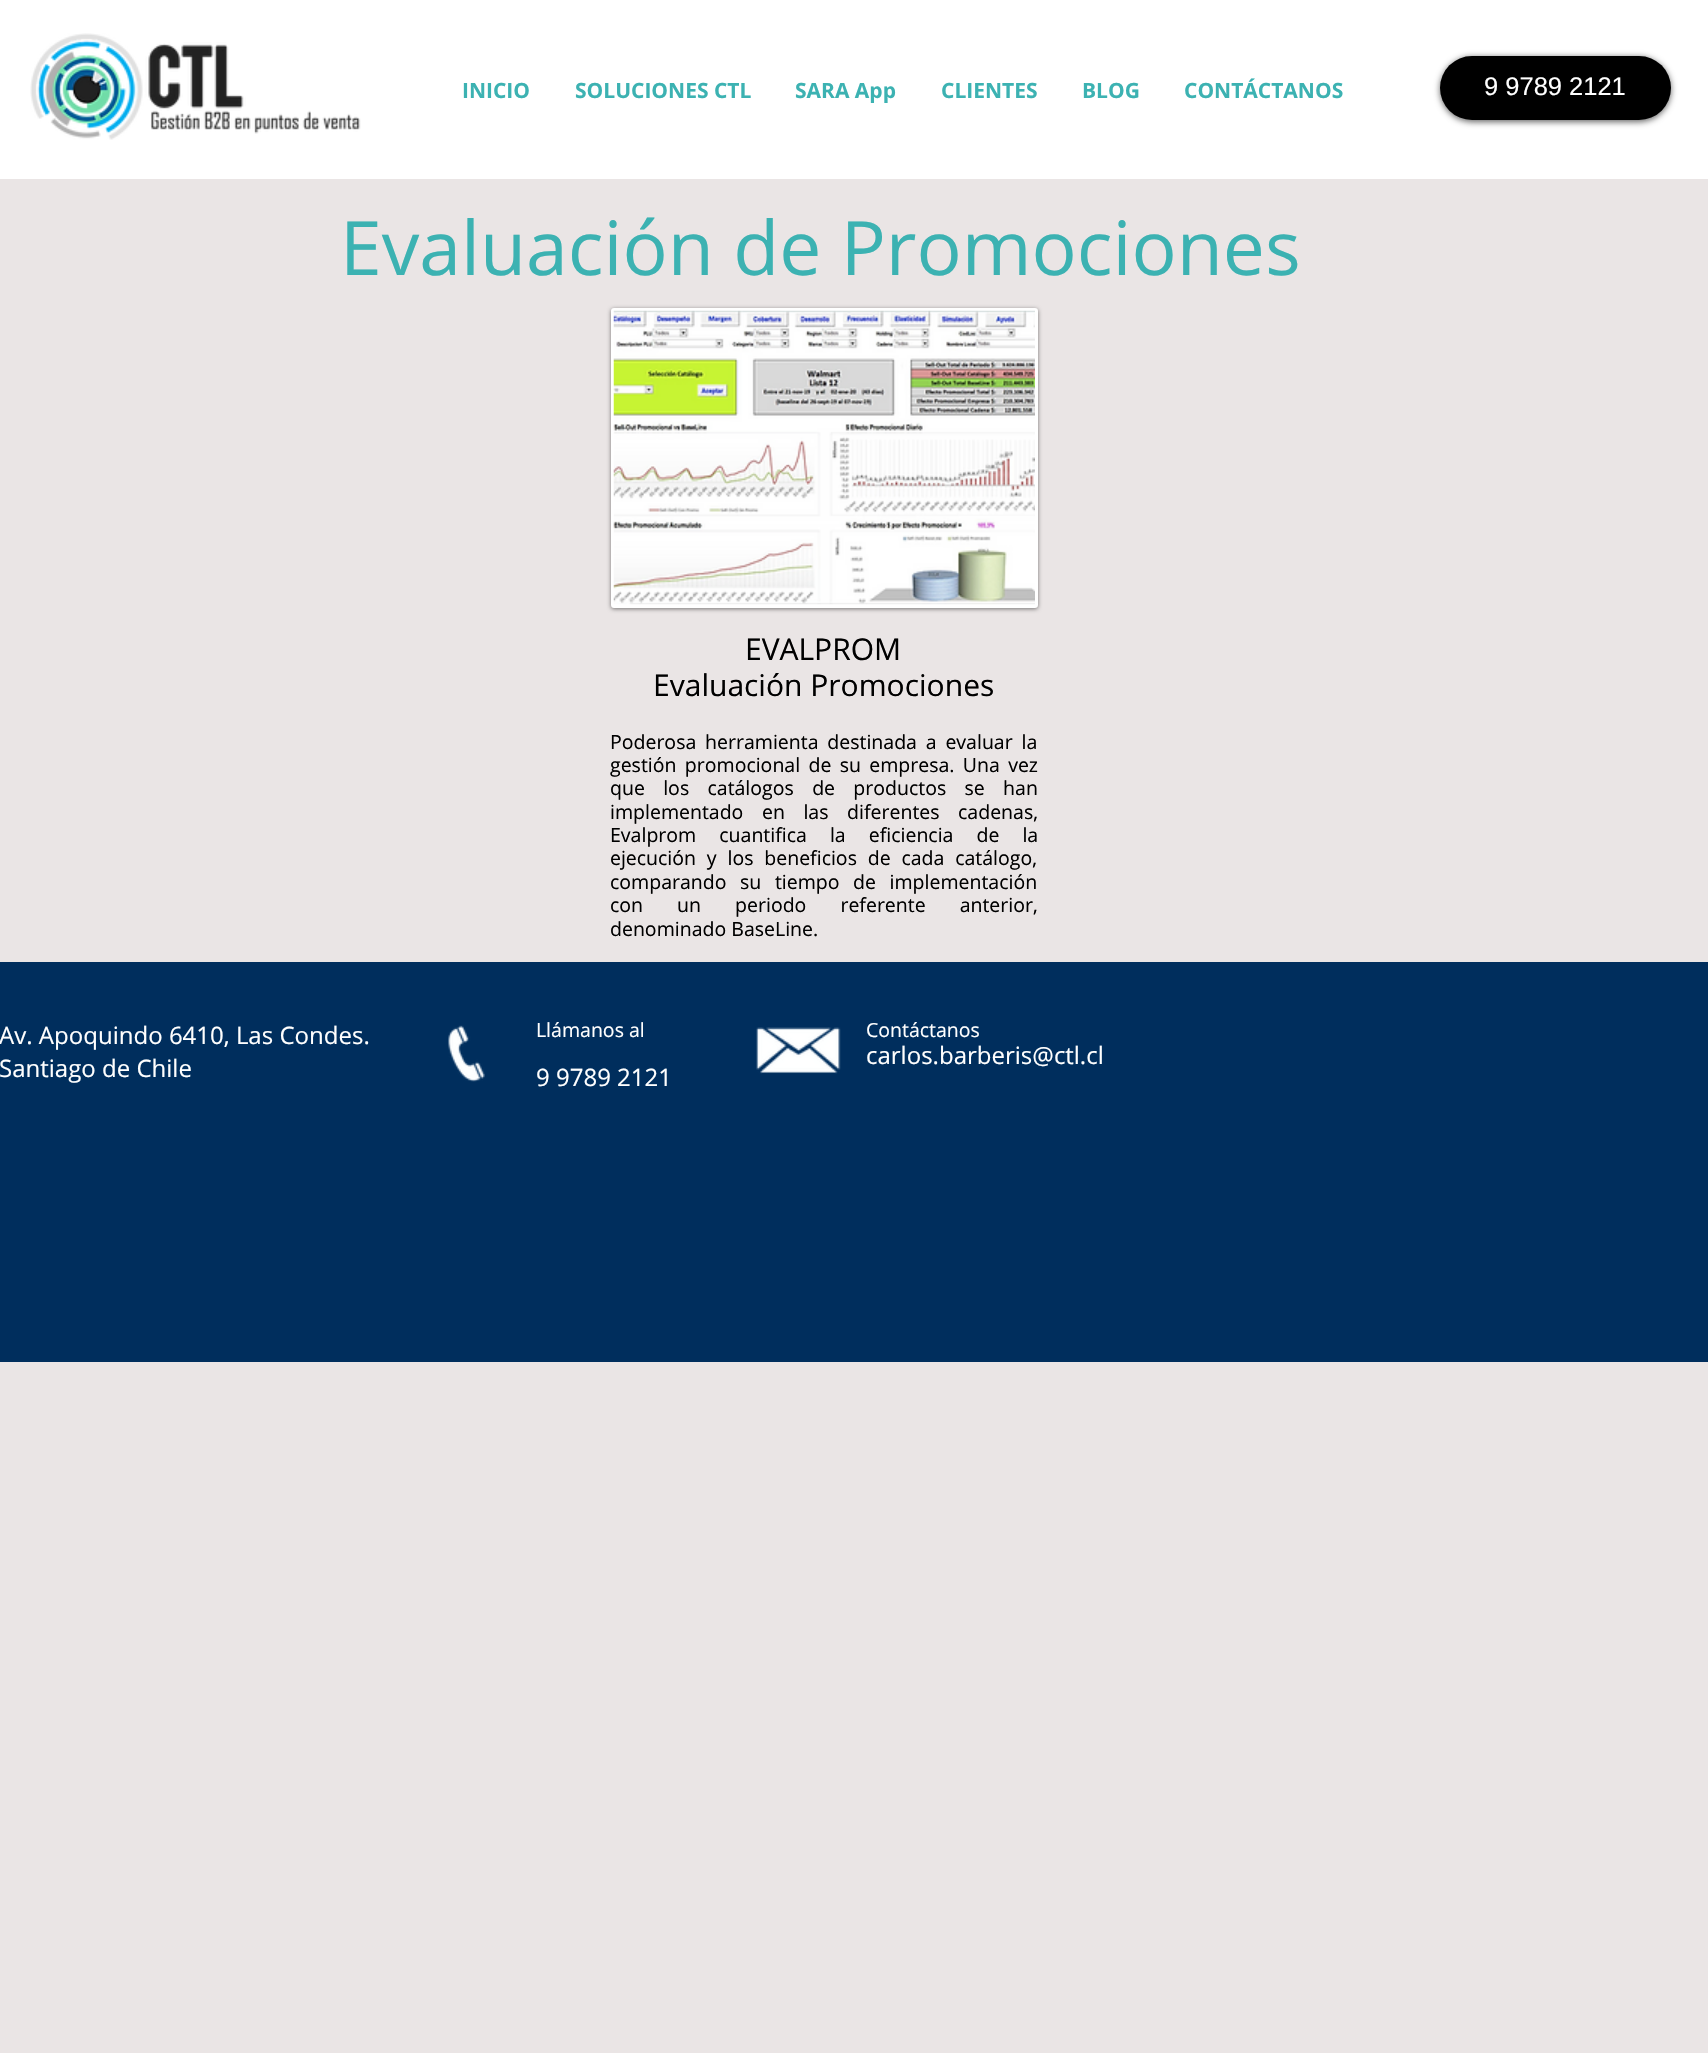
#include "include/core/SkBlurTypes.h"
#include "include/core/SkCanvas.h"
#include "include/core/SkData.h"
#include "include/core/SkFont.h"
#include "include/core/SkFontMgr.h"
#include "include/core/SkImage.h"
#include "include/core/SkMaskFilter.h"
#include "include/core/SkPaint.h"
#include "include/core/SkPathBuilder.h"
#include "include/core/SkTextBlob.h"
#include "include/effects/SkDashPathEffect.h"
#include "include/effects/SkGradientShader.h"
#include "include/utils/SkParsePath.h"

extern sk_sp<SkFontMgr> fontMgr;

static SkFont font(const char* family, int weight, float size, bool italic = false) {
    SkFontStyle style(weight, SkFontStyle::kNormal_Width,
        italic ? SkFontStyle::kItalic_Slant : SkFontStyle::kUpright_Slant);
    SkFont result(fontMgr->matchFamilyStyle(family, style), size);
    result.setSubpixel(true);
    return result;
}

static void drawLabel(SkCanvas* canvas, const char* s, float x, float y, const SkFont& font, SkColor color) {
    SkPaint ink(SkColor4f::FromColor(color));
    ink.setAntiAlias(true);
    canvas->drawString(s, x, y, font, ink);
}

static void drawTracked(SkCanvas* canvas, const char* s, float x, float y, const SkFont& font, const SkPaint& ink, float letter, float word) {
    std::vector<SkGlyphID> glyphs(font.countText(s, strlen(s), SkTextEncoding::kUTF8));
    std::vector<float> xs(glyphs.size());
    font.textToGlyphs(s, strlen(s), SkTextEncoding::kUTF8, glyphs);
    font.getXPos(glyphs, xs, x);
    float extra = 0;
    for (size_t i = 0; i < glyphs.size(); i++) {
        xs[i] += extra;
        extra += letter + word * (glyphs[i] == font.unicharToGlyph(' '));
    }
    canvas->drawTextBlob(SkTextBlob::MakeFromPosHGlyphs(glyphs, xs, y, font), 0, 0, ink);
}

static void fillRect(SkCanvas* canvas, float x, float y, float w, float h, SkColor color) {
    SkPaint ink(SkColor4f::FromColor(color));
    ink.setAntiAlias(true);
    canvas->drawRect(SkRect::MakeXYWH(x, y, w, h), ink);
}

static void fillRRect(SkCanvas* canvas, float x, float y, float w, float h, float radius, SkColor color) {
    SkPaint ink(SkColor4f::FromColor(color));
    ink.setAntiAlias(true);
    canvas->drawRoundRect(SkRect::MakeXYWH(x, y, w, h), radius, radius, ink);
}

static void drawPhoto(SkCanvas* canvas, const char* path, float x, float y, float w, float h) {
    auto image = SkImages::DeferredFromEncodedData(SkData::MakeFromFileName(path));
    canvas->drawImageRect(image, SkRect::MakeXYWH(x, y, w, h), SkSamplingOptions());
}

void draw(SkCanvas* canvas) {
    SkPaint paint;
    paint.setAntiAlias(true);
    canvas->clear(0xFFEAE5E5);
    fillRect(canvas, 0, 0, 1708, 179, 0xFFFFFFFF);
    drawPhoto(canvas, "assets/img1.png", 30, 33, 331, 107);
    SkFont font1 = font("Open Sans", 700, 21);
    drawLabel(canvas, "INICIO", 462, 98, font1, 0xFF3CB2B2);
    drawLabel(canvas, "SOLUCIONES CTL", 575, 98, font1, 0xFF3CB2B2);
    drawLabel(canvas, "SARA App", 795, 98, font1, 0xFF3CB2B2);
    drawLabel(canvas, "CLIENTES", 941, 98, font1, 0xFF3CB2B2);
    drawLabel(canvas, "BLOG", 1082, 98, font1, 0xFF3CB2B2);
    drawLabel(canvas, "CONTÁCTANOS", 1184, 98, font1, 0xFF3CB2B2);
    paint.setColor(0x99000000);
    paint.setMaskFilter(SkMaskFilter::MakeBlur(kNormal_SkBlurStyle, 3));
    canvas->drawRoundRect(SkRect::MakeXYWH(1440, 57, 231, 65), 32.5f, 32.5f, paint);
    paint.setMaskFilter(nullptr);
    fillRRect(canvas, 1440, 56, 231, 64, 32, 0xFF000000);
    SkFont font2 = font("Liberation Sans", 400, 25.5f);
    drawLabel(canvas, "9 9789 2121", 1484, 95, font2, 0xFFFFFFFF);
    SkFont font3 = font("Open Sans", 400, 75);
    drawLabel(canvas, "Evaluación de Promociones", 340, 275, font3, 0xFF3CB2B2);
    paint.setColor(0x80000000);
    paint.setMaskFilter(SkMaskFilter::MakeBlur(kNormal_SkBlurStyle, 2));
    canvas->drawRoundRect(SkRect::MakeXYWH(611, 309, 427, 300), 3, 3, paint);
    paint.setMaskFilter(nullptr);
    paint.setColor(0xFFFFFFFF);
    canvas->drawRoundRect(SkRect::MakeXYWH(612.5f, 309.5f, 424, 297), 1.5f, 1.5f, paint);
    paint.setStroke(true);
    paint.setStrokeWidth(3);
    canvas->drawRoundRect(SkRect::MakeXYWH(612.5f, 309.5f, 424, 297), 1.5f, 1.5f, paint);
    drawPhoto(canvas, "assets/img2.png", 613, 310, 422, 295);
    SkFont font4 = font("Open Sans", 400, 30);
    drawLabel(canvas, "EVALPROM", 745, 660, font4, 0xFF000000);
    drawLabel(canvas, "Evaluación Promociones", 653, 696, font4, 0xFF000000);
    SkFont font5 = font("Open Sans", 400, 19.5f);
    paint.setStroke(false);
    paint.setColor(0xFF000000);
    drawTracked(canvas, "Poderosa herramienta destinada a evaluar la", 610, 749, font5, paint, 0, 3.75f);
    drawTracked(canvas, "gestión promocional de su empresa. Una vez", 610, 772, font5, paint, 0, 3.25f);
    drawTracked(canvas, "que los catálogos de productos se han", 610, 795, font5, paint, 0, 13.25f);
    drawTracked(canvas, "implementado en las diferentes cadenas,", 610, 819, font5, paint, 0, 13.5f);
    drawTracked(canvas, "Evalprom cuantifica la eficiencia de la", 610, 842, font5, paint, 0, 18);
    drawTracked(canvas, "ejecución y los beneficios de cada catálogo,", 610, 865, font5, paint, 0, 5.75f);
    drawTracked(canvas, "comparando su tiempo de implementación", 610, 889, font5, paint, 0, 8.5f);
    drawTracked(canvas, "con un periodo referente anterior,", 610, 912, font5, paint, 0, 29);
    drawLabel(canvas, "denominado BaseLine.", 610, 936, font5, 0xFF000000);
    fillRect(canvas, 0, 962, 1708, 400, 0xFF002E5D);
    SkFont font6 = font("Open Sans", 400, 24);
    drawLabel(canvas, "Av. Apoquindo 6410, Las Condes.", -1, 1044, font6, 0xFFFFFFFF);
    drawLabel(canvas, "Santiago de Chile", -1, 1077, font6, 0xFFFFFFFF);
    drawPhoto(canvas, "assets/img3.png", 448, 1025, 37, 57);
    drawLabel(canvas, "Llámanos al", 536, 1037, font5, 0xFFFFFFFF);
    drawPhoto(canvas, "assets/img4.png", 756, 1027, 85, 47);
    drawLabel(canvas, "Contáctanos", 866, 1037, font5, 0xFFFFFFFF);
    drawLabel(canvas, "carlos.barberis@ctl.cl", 866, 1064, font6, 0xFFFFFFFF);
    drawLabel(canvas, "9 9789 2121", 536, 1086, font6, 0xFFFFFFFF);
}
